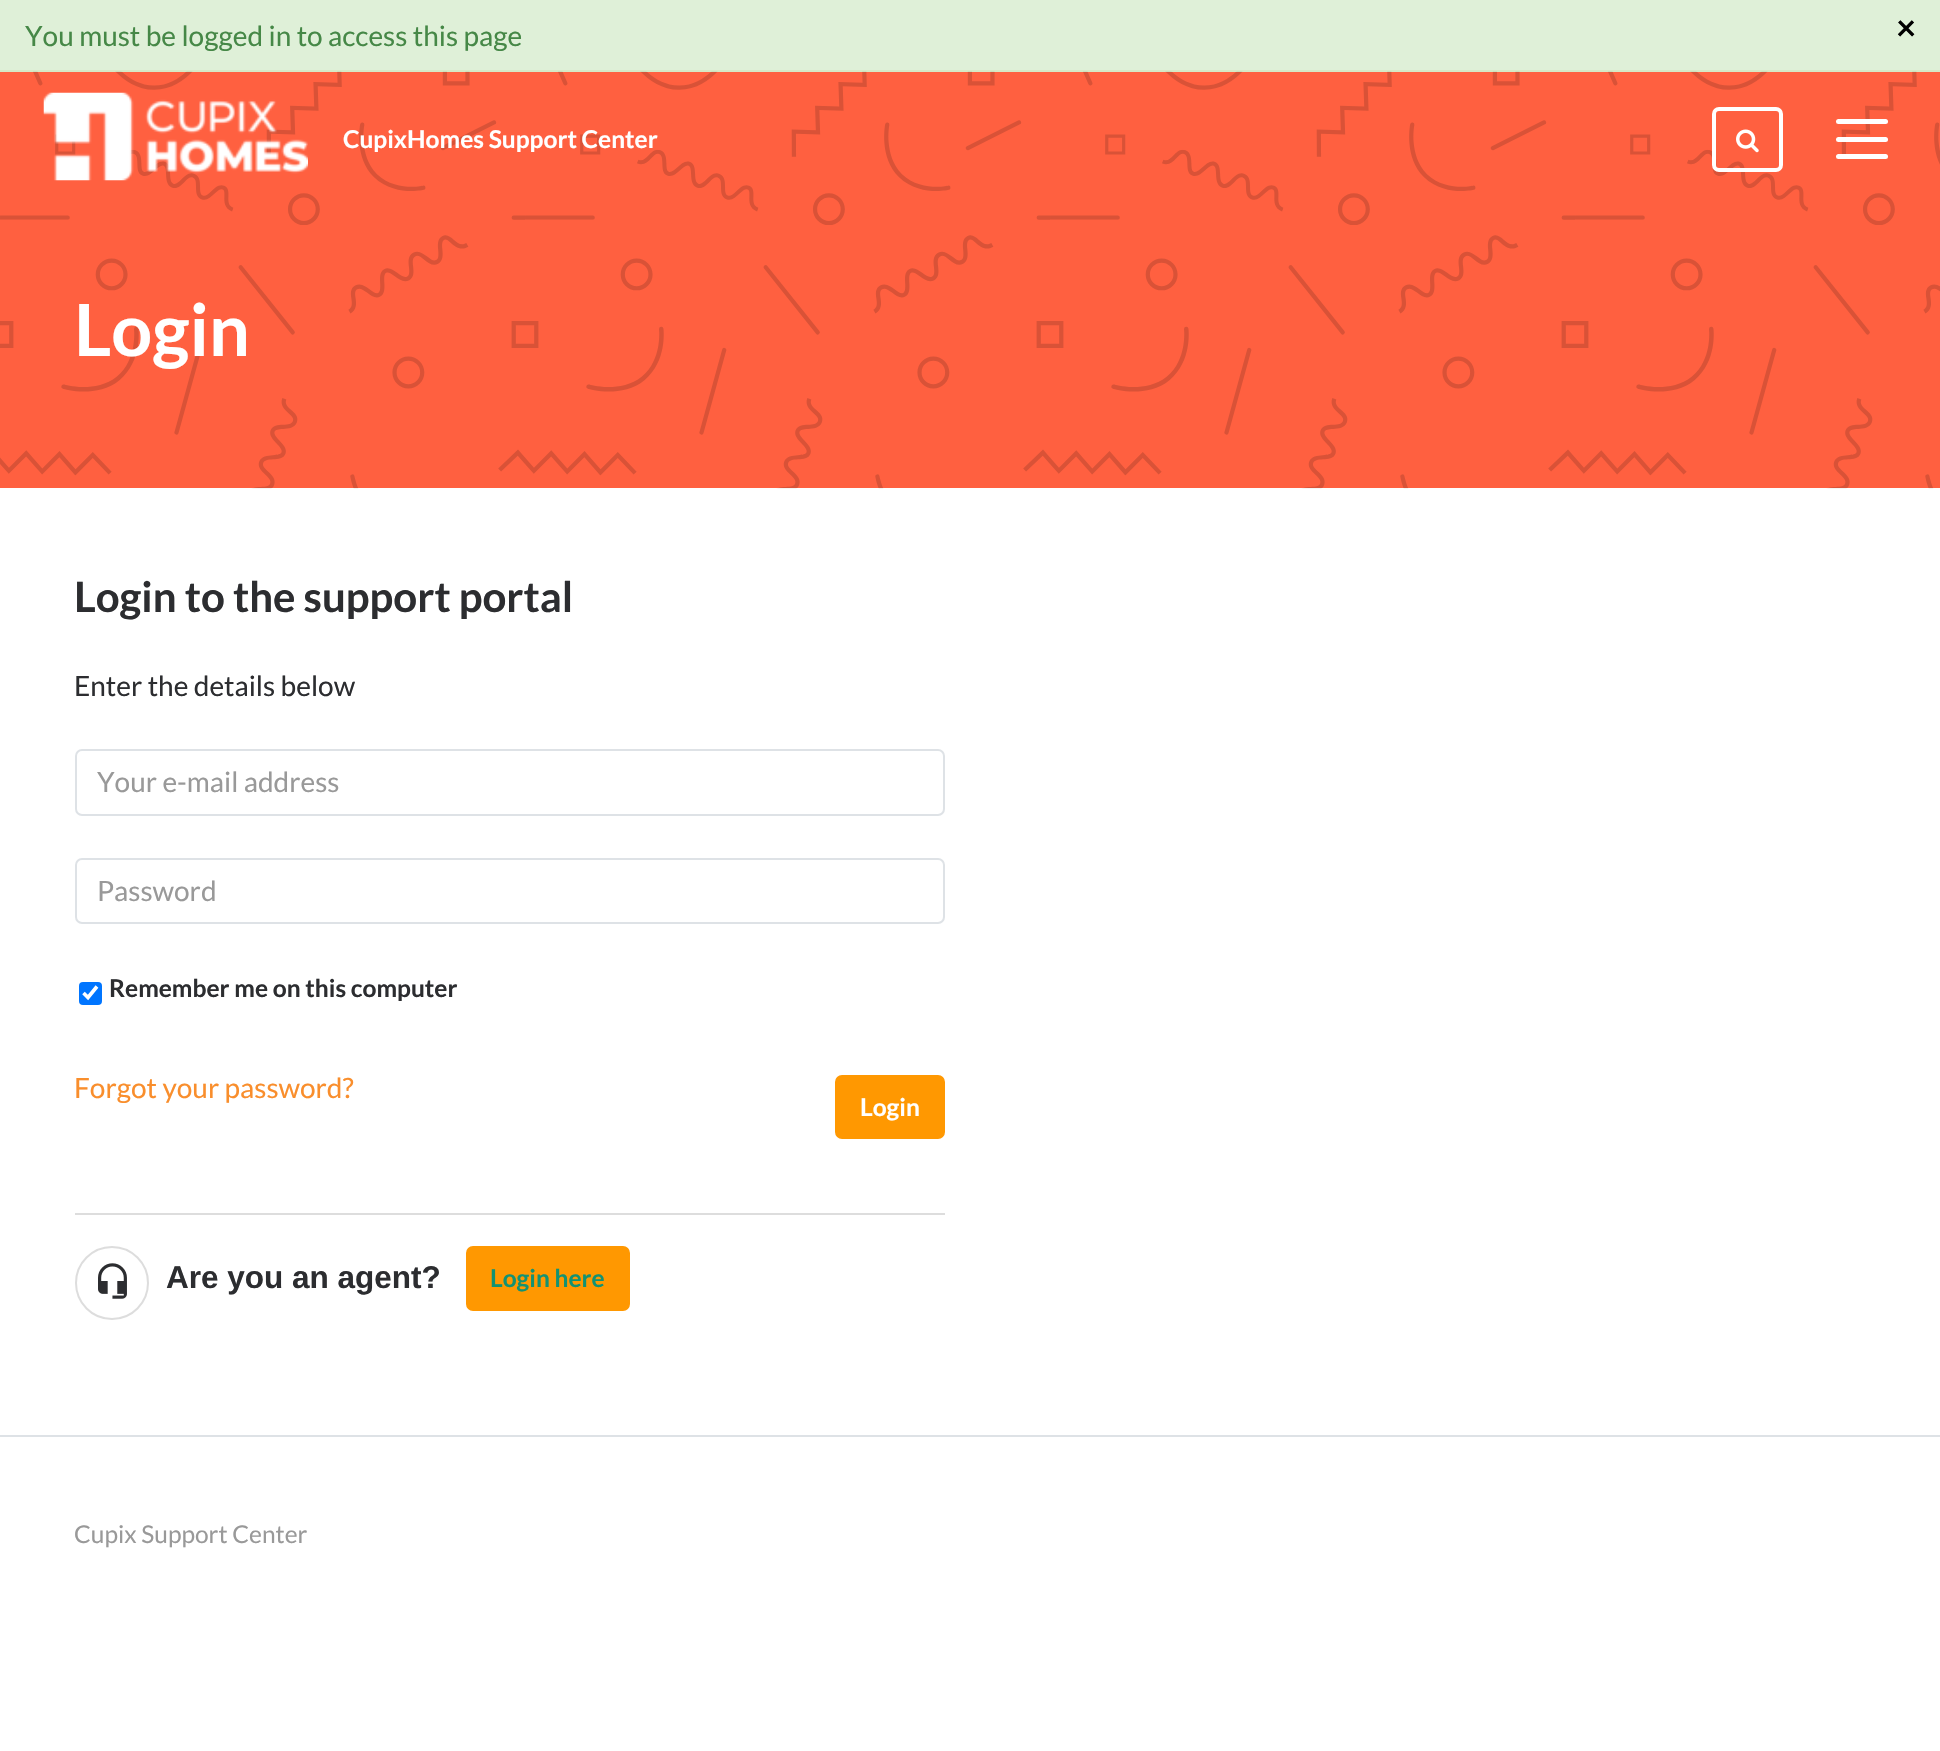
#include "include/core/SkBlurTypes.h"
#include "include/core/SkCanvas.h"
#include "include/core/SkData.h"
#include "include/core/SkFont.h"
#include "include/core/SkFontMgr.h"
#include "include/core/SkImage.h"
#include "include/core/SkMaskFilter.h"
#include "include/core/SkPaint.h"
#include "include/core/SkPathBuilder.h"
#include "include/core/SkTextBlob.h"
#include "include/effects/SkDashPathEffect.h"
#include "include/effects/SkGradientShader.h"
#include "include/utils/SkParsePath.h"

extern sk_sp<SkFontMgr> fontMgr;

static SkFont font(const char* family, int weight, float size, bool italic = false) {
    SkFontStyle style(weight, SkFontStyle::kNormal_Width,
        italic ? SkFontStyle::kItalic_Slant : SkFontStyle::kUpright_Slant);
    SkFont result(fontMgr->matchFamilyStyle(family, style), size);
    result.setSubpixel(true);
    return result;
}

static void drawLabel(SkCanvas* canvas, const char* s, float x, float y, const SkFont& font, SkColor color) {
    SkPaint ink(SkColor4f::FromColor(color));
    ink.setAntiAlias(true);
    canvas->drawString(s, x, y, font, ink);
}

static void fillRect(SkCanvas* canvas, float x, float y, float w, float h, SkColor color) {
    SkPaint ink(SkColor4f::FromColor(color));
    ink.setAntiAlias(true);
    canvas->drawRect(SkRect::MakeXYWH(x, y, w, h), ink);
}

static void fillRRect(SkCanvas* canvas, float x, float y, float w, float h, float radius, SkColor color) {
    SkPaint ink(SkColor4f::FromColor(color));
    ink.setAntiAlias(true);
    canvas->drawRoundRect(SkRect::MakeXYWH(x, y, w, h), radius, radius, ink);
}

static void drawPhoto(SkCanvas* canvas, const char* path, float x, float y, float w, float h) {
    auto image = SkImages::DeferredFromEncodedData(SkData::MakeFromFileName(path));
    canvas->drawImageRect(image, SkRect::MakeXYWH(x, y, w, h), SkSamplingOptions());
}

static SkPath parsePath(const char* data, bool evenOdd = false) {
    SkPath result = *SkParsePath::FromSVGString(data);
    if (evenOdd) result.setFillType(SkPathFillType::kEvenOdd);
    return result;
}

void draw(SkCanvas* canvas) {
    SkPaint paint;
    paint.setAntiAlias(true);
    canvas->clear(0xFFFFFFFF);
    fillRect(canvas, 0, 0, 1940, 70, 0xFFDFF0D8);
    fillRect(canvas, 0, 70, 1940, 2, 0xFFD6E9C6);
    SkFont font1 = font("Lato", 400, 28);
    drawLabel(canvas, "You must be logged in to access this page", 25, 46, font1, 0xFF468847);
    SkFont font2 = font("Lato", 700, 35);
    drawLabel(canvas, "×", 1896, 40, font2, 0xFF000000);
    fillRect(canvas, 0, 72, 1940, 416, 0xFFFF6040);
    drawPhoto(canvas, "assets/img3.png", 0, 71, 1940, 418);
    drawPhoto(canvas, "assets/img1.png", 43, 92, 265, 89);
    SkFont font3 = font("Lato", 700, 24.5f);
    drawLabel(canvas, "CupixHomes Support Center", 343, 148, font3, 0xFFFFFFFF);
    paint.setStroke(true);
    paint.setStrokeWidth(4);
    paint.setColor(0xFFFFFFFF);
    canvas->drawRoundRect(SkRect::MakeXYWH(1714, 109, 67, 61), 5, 5, paint);
    drawPhoto(canvas, "assets/img2.png", 1736, 129, 23, 24);
    fillRRect(canvas, 1836, 137, 52, 5, 2.5f, 0xFFFFFFFF);
    fillRRect(canvas, 1836, 119, 52, 5, 2.5f, 0xFFFFFFFF);
    fillRRect(canvas, 1836, 154, 52, 5, 2.5f, 0xFFFFFFFF);
    SkFont font4 = font("Lato", 700, 72);
    drawLabel(canvas, "Login", 74, 356, font4, 0xFFFFFFFF);
    SkFont font5 = font("Lato", 700, 42);
    drawLabel(canvas, "Login to the support portal", 74, 612, font5, 0xFF2C2D30);
    drawLabel(canvas, "Enter the details below", 74, 696, font1, 0xFF2C2D30);
    paint.setStrokeWidth(2);
    paint.setColor(0xFFDEE2E6);
    canvas->drawRoundRect(SkRect::MakeXYWH(76, 750, 868, 65), 6, 6, paint);
    drawLabel(canvas, "Your e-mail address", 97, 792, font1, 0xFF999999);
    canvas->drawRoundRect(SkRect::MakeXYWH(76, 859, 868, 64), 6, 6, paint);
    drawLabel(canvas, "Password", 97, 901, font1, 0xFF999999);
    fillRRect(canvas, 79, 982, 23, 23, 4, 0xFF0075FF);
    paint.setStrokeWidth(3.6f);
    paint.setColor(0xFFFFFFFF);
    canvas->drawPath(parsePath("M83.5 993L88 997.5L97 986.5"), paint);
    drawLabel(canvas, "Remember me on this computer", 109, 997, font3, 0xFF2C2D30);
    drawLabel(canvas, "Forgot your password?", 74, 1098, font1, 0xFFF98E2C);
    paint.setStroke(false);
    paint.setColor(0xFFFF9801);
    canvas->drawRoundRect(SkRect::MakeXYWH(837, 1077, 106, 60), 5, 5, paint);
    paint.setStroke(true);
    paint.setStrokeWidth(4);
    canvas->drawRoundRect(SkRect::MakeXYWH(837, 1077, 106, 60), 5, 5, paint);
    drawLabel(canvas, "Login", 860, 1116, font3, 0xFFFFFFFF);
    fillRect(canvas, 75, 1213, 870, 2, 0xFFDDDDDD);
    paint.setStrokeWidth(2);
    paint.setColor(0xFFDDDDDD);
    canvas->drawCircle(112, 1283, 36, paint);
    drawPhoto(canvas, "assets/img4.png", 98, 1263, 29, 36);
    SkFont font6 = font("Liberation Sans", 700, 31.5f);
    drawLabel(canvas, "Are you an agent?", 166, 1288, font6, 0xFF2C2D30);
    paint.setStroke(false);
    paint.setColor(0xFFFF9801);
    canvas->drawRoundRect(SkRect::MakeXYWH(468, 1248, 160, 61), 5, 5, paint);
    paint.setStroke(true);
    paint.setStrokeWidth(4);
    canvas->drawRoundRect(SkRect::MakeXYWH(468, 1248, 160, 61), 5, 5, paint);
    drawLabel(canvas, "Login here", 490, 1287, font3, 0xFF139272);
    fillRect(canvas, 0, 1435, 1940, 2, 0xFFDEE2E6);
    SkFont font7 = font("Lato", 400, 24.5f);
    drawLabel(canvas, "Cupix Support Center", 74, 1543, font7, 0xFF999999);
}
